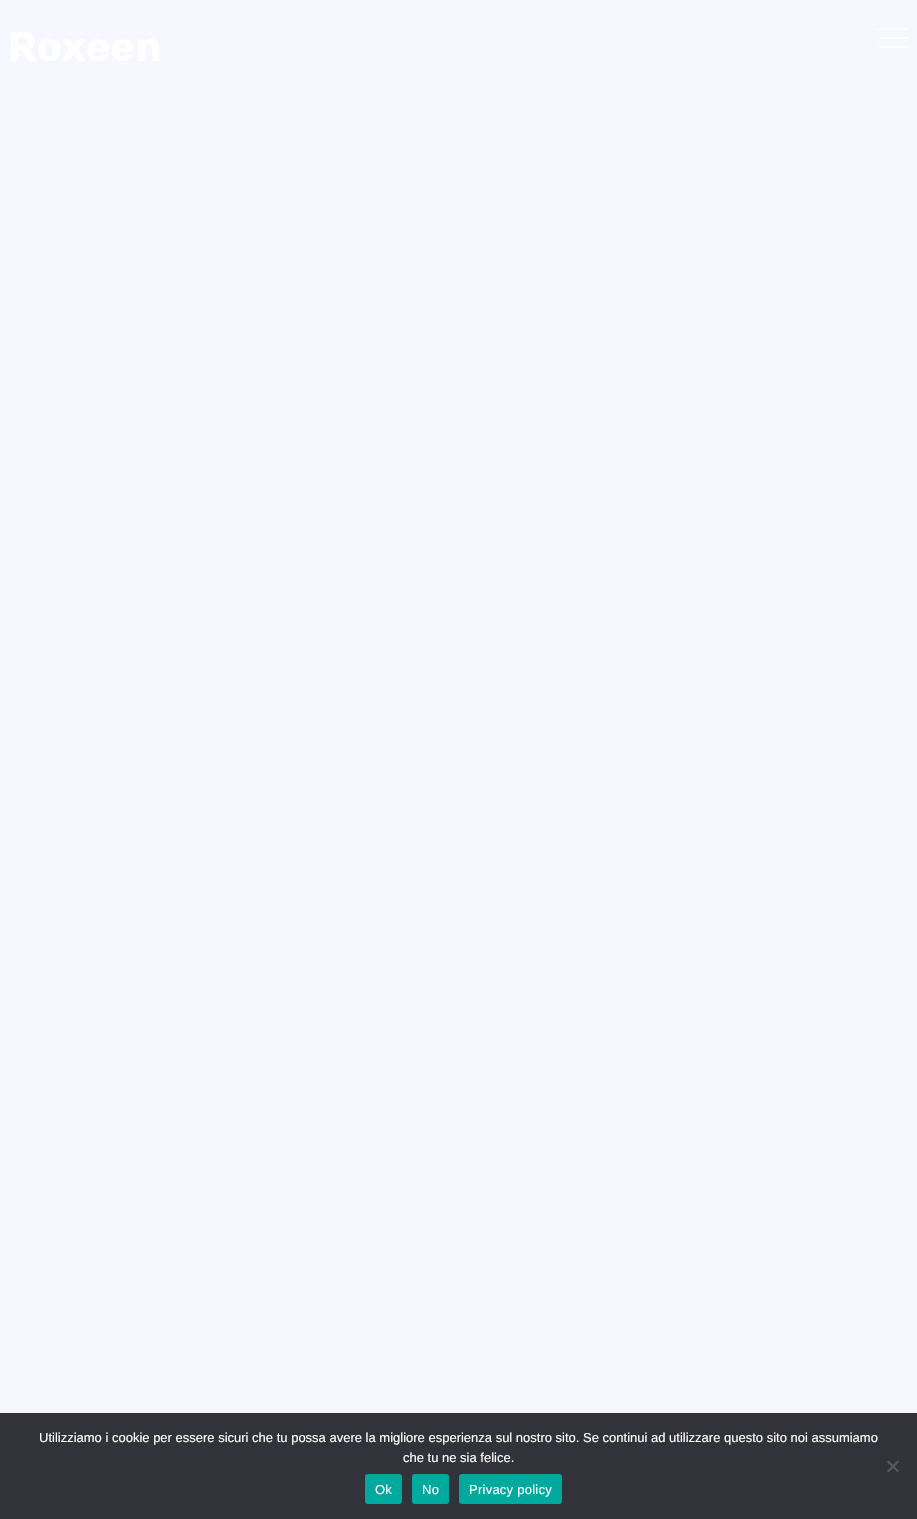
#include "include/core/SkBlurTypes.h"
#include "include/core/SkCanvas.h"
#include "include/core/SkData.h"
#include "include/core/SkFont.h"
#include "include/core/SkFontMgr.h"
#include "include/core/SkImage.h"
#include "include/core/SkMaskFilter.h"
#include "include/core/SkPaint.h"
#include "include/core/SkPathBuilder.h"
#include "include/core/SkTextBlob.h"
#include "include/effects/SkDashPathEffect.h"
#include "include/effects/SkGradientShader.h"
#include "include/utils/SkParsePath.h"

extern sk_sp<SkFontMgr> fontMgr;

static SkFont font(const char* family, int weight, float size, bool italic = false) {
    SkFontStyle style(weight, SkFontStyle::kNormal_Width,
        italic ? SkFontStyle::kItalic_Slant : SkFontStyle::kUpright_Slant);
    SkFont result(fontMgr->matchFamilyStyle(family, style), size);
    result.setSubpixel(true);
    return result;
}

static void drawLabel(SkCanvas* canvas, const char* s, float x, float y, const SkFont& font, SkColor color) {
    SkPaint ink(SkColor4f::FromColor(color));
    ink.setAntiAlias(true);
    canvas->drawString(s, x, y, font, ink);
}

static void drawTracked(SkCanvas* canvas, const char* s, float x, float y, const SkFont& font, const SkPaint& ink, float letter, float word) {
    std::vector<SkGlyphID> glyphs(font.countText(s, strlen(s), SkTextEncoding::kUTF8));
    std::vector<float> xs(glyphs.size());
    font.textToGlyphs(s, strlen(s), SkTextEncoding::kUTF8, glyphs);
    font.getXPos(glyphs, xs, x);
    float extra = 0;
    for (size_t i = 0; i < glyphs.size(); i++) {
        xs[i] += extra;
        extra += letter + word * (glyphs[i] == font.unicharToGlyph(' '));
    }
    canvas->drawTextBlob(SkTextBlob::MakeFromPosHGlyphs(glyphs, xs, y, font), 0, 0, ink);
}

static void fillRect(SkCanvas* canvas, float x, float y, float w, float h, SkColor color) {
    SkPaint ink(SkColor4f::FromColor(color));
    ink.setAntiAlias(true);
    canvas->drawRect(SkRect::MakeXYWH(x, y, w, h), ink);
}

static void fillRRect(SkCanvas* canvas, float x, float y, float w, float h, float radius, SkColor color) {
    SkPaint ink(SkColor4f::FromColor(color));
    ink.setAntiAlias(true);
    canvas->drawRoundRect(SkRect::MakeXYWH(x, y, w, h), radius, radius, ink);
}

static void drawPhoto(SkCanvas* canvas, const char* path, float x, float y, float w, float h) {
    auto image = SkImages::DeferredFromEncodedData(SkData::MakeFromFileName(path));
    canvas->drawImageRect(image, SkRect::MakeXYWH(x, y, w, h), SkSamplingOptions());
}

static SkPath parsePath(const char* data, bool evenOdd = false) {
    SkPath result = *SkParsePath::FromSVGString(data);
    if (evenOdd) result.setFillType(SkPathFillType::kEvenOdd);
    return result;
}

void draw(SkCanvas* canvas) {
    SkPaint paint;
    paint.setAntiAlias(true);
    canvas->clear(0xFFF7F7FF);
    drawPhoto(canvas, "assets/img1.png", 11, 32, 148, 29);
    fillRect(canvas, 877, 28, 30, 2, 0xFFFFFFFF);
    fillRect(canvas, 877, 37, 30, 2, 0xFFFFFFFF);
    fillRect(canvas, 877, 46, 30, 2, 0xFFFFFFFF);
    fillRect(canvas, 0, 1413, 917, 106, 0xFF32323A);
    SkFont font1 = font("Liberation Sans", 400, 13);
    drawLabel(canvas, "Utilizziamo i cookie per essere sicuri che tu possa avere la migliore esperienza sul nostro sito. Se continui ad utilizzare questo sito noi assumiamo", 39, 1442, font1, 0xFFFFFFFF);
    drawLabel(canvas, "che tu ne sia felice.", 403, 1462, font1, 0xFFFFFFFF);
    paint.setColor(0xFF59595D);
    canvas->drawPath(parsePath("M897.5 1460.5L899 1462L888.5 1472.5L887 1471Z"), paint);
    canvas->drawPath(parsePath("M887 1462L888.5 1460.5L899 1471L897.5 1472.5Z"), paint);
    fillRRect(canvas, 365, 1474, 37, 30, 3, 0xFF00A99D);
    paint.setColor(0xFFFFFFFF);
    drawTracked(canvas, "Ok", 375, 1494, font1, paint, 0.25f, 0);
    fillRRect(canvas, 412, 1474, 37, 30, 3, 0xFF00A99D);
    drawTracked(canvas, "No", 422, 1494, font1, paint, 0.25f, 0);
    fillRRect(canvas, 459, 1474, 103, 30, 3, 0xFF00A99D);
    drawTracked(canvas, "Privacy policy", 469, 1494, font1, paint, 0.25f, 0);
}
